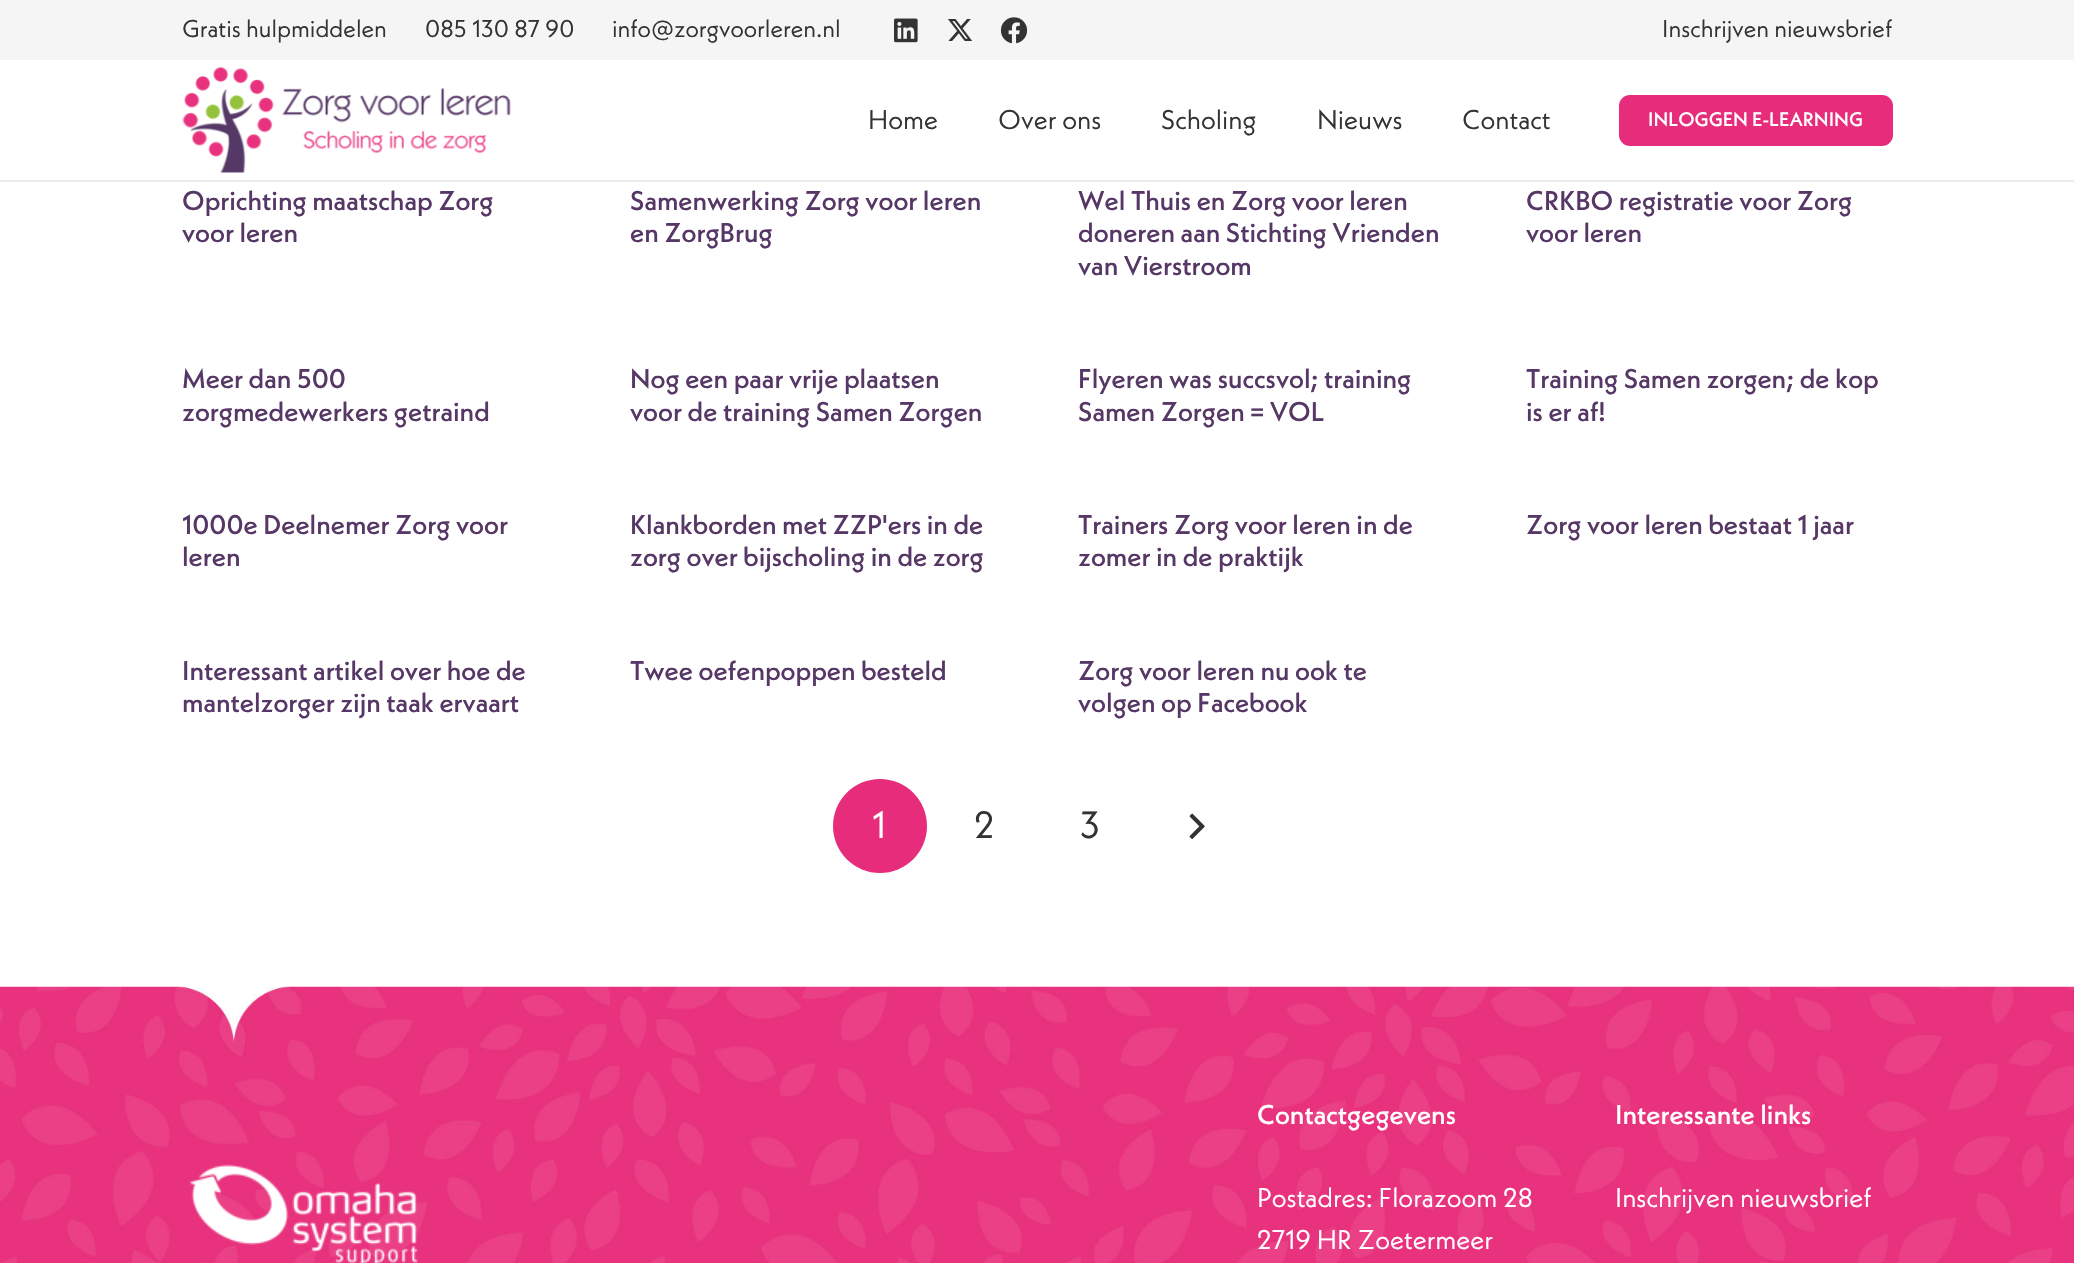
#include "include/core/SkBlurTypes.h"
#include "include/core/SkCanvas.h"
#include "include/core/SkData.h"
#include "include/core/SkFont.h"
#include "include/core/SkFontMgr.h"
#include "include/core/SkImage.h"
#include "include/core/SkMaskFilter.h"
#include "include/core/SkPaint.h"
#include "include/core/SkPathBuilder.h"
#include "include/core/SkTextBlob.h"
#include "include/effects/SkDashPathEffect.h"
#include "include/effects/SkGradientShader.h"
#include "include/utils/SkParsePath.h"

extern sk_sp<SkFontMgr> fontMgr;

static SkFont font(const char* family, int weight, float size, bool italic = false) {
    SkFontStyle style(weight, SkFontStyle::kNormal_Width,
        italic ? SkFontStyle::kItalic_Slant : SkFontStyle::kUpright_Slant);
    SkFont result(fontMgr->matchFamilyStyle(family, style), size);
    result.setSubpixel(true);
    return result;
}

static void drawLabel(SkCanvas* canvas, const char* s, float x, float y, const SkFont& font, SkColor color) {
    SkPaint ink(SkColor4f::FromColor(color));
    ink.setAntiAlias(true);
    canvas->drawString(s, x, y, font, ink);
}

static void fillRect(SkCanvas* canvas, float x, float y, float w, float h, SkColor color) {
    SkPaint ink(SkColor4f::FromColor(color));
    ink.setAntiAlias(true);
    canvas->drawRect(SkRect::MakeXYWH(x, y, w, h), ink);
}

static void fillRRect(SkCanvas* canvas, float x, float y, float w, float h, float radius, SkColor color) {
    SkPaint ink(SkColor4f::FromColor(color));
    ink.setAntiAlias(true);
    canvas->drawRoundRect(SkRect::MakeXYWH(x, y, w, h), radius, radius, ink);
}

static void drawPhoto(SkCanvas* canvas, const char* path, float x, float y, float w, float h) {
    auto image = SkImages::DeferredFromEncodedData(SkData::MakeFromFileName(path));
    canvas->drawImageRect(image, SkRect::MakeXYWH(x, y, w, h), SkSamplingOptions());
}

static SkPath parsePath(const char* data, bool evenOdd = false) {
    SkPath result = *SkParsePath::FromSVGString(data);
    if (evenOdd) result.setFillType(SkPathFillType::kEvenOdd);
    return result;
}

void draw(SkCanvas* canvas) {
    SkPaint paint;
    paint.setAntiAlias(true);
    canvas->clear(0xFFFFFFFF);
    fillRect(canvas, 0, 0, 2074, 60, 0xFFF5F5F5);
    SkFont font1 = font("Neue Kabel", 400, 24.25f);
    drawLabel(canvas, "Gratis hulpmiddelen", 182, 37, font1, 0xFF333333);
    drawLabel(canvas, "085 130 87 90", 425, 37, font1, 0xFF333333);
    drawLabel(canvas, "info@zorgvoorleren.nl", 612, 37, font1, 0xFF333333);
    drawPhoto(canvas, "assets/img1.png", 894, 18, 24, 25);
    drawPhoto(canvas, "assets/img2.png", 948, 19, 25, 22);
    drawPhoto(canvas, "assets/img3.png", 1000, 17, 28, 27);
    drawLabel(canvas, "Inschrijven nieuwsbrief", 1662, 37, font1, 0xFF333333);
    paint.setColor(0xFFEBEBEB);
    canvas->drawPath(parsePath("M0 180V182H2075V62H2074V180Z"), paint);
    drawPhoto(canvas, "assets/img4.png", 182, 67, 329, 106);
    SkFont font2 = font("Neue Kabel", 400, 27);
    drawLabel(canvas, "Home", 868, 129, font2, 0xFF333333);
    drawLabel(canvas, "Over ons", 998, 129, font2, 0xFF333333);
    drawLabel(canvas, "Scholing", 1161, 129, font2, 0xFF333333);
    drawLabel(canvas, "Nieuws", 1317, 129, font2, 0xFF333333);
    drawLabel(canvas, "Contact", 1462, 129, font2, 0xFF333333);
    fillRRect(canvas, 1619, 95, 274, 51, 11, 0xFFE72C7B);
    SkFont font3 = font("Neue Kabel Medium", 500, 19.5f);
    drawLabel(canvas, "INLOGGEN E-LEARNING", 1648, 126, font3, 0xFFFFFFFF);
    SkFont font4 = font("Neue Kabel Medium", 500, 27);
    drawLabel(canvas, "Oprichting maatschap Zorg", 182, 210, font4, 0xFF563766);
    drawLabel(canvas, "voor leren", 182, 242, font4, 0xFF563766);
    drawLabel(canvas, "Samenwerking Zorg voor leren", 630, 210, font4, 0xFF563766);
    drawLabel(canvas, "en ZorgBrug", 630, 242, font4, 0xFF563766);
    drawLabel(canvas, "Wel Thuis en Zorg voor leren", 1078, 210, font4, 0xFF563766);
    drawLabel(canvas, "doneren aan Stichting Vrienden", 1078, 242, font4, 0xFF563766);
    drawLabel(canvas, "van Vierstroom", 1078, 275, font4, 0xFF563766);
    drawLabel(canvas, "CRKBO registratie voor Zorg", 1526, 210, font4, 0xFF563766);
    drawLabel(canvas, "voor leren", 1526, 242, font4, 0xFF563766);
    drawLabel(canvas, "Meer dan 500", 182, 388, font4, 0xFF563766);
    drawLabel(canvas, "zorgmedewerkers getraind", 182, 421, font4, 0xFF563766);
    drawLabel(canvas, "Nog een paar vrije plaatsen", 630, 388, font4, 0xFF563766);
    drawLabel(canvas, "voor de training Samen Zorgen", 630, 421, font4, 0xFF563766);
    drawLabel(canvas, "Flyeren was succsvol; training", 1078, 388, font4, 0xFF563766);
    drawLabel(canvas, "Samen Zorgen = VOL", 1078, 421, font4, 0xFF563766);
    drawLabel(canvas, "Training Samen zorgen; de kop", 1526, 388, font4, 0xFF563766);
    drawLabel(canvas, "is er af!", 1526, 421, font4, 0xFF563766);
    drawLabel(canvas, "1000e Deelnemer Zorg voor", 182, 534, font4, 0xFF563766);
    drawLabel(canvas, "leren", 182, 566, font4, 0xFF563766);
    drawLabel(canvas, "Klankborden met ZZP'ers in de", 630, 534, font4, 0xFF563766);
    drawLabel(canvas, "zorg over bijscholing in de zorg", 630, 566, font4, 0xFF563766);
    drawLabel(canvas, "Trainers Zorg voor leren in de", 1078, 534, font4, 0xFF563766);
    drawLabel(canvas, "zomer in de praktijk", 1078, 566, font4, 0xFF563766);
    drawLabel(canvas, "Zorg voor leren bestaat 1 jaar", 1526, 534, font4, 0xFF563766);
    drawLabel(canvas, "Interessant artikel over hoe de", 182, 680, font4, 0xFF563766);
    drawLabel(canvas, "mantelzorger zijn taak ervaart", 182, 712, font4, 0xFF563766);
    drawLabel(canvas, "Twee oefenpoppen besteld", 630, 680, font4, 0xFF563766);
    drawLabel(canvas, "Zorg voor leren nu ook te", 1078, 680, font4, 0xFF563766);
    drawLabel(canvas, "volgen op Facebook", 1078, 712, font4, 0xFF563766);
    paint.setColor(0xFFE72C7B);
    canvas->drawCircle(880, 826, 47, paint);
    SkFont font5 = font("Neue Kabel", 400, 38);
    drawLabel(canvas, "1", 872, 838, font5, 0xFFFFFFFF);
    drawLabel(canvas, "2", 974, 838, font5, 0xFF333333);
    drawLabel(canvas, "3", 1080, 838, font5, 0xFF333333);
    drawPhoto(canvas, "assets/img5.png", 1189, 813, 16, 26);
    drawPhoto(canvas, "assets/img6.png", 0, 986, 2074, 277);
    drawPhoto(canvas, "assets/img7.png", 190, 1164, 228, 99);
    drawLabel(canvas, "Contactgegevens", 1257, 1124, font4, 0xFFFFFFFF);
    drawLabel(canvas, "Postadres: Florazoom 28", 1257, 1207, font2, 0xFFFFFFFF);
    drawLabel(canvas, "2719 HR Zoetermeer", 1257, 1249, font2, 0xFFFFFFFF);
    drawLabel(canvas, "Interessante links", 1615, 1124, font4, 0xFFFFFFFF);
    drawLabel(canvas, "Inschrijven nieuwsbrief", 1615, 1207, font2, 0xFFFFFFFF);
}
